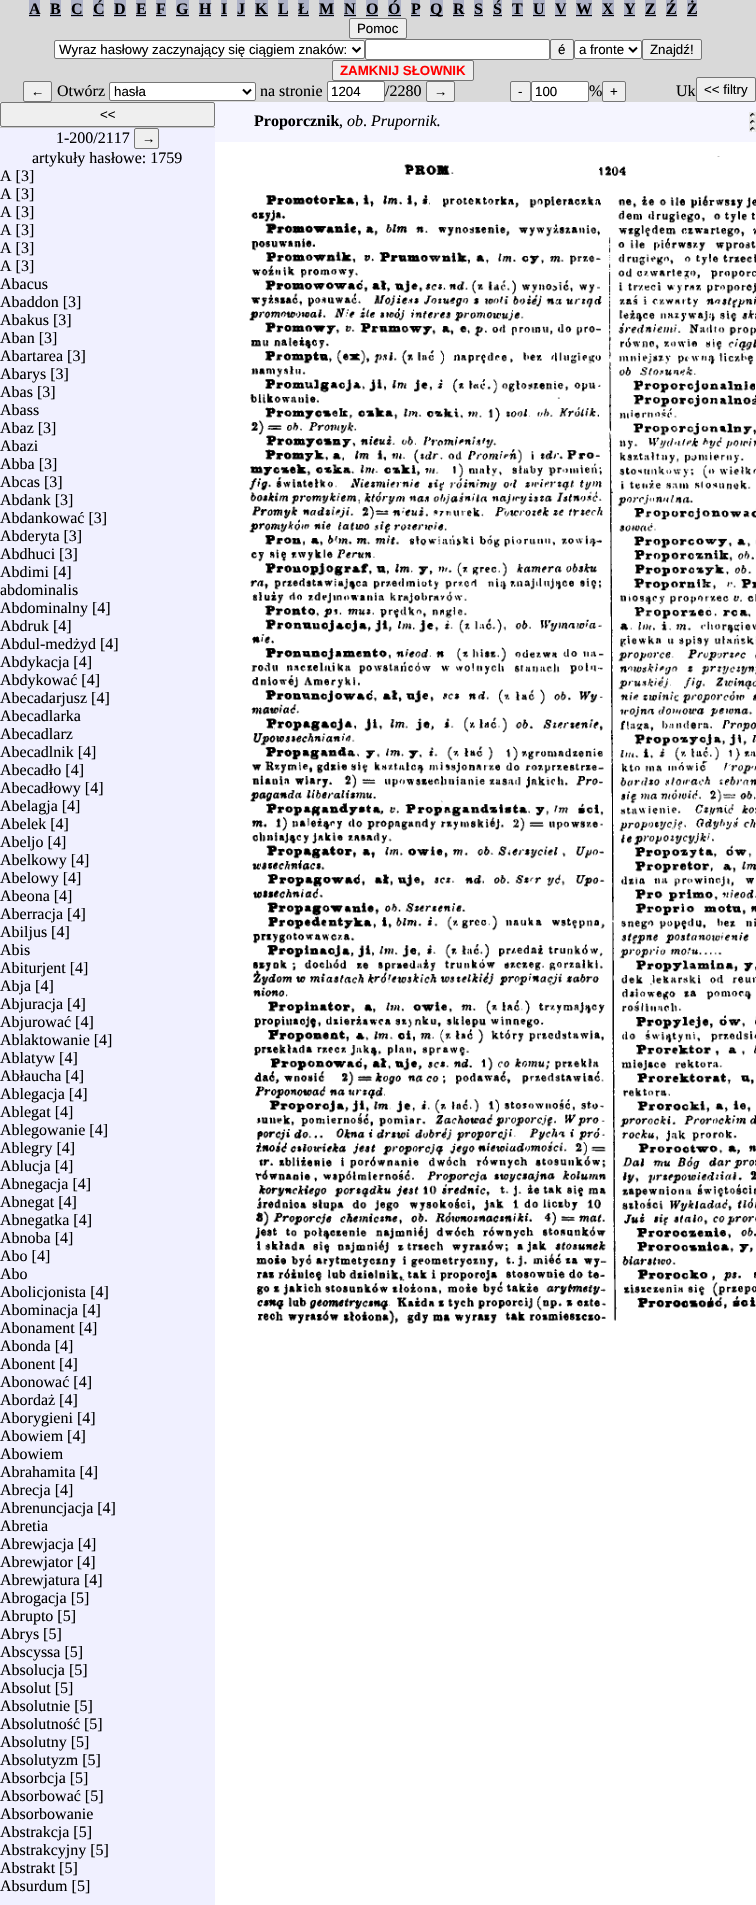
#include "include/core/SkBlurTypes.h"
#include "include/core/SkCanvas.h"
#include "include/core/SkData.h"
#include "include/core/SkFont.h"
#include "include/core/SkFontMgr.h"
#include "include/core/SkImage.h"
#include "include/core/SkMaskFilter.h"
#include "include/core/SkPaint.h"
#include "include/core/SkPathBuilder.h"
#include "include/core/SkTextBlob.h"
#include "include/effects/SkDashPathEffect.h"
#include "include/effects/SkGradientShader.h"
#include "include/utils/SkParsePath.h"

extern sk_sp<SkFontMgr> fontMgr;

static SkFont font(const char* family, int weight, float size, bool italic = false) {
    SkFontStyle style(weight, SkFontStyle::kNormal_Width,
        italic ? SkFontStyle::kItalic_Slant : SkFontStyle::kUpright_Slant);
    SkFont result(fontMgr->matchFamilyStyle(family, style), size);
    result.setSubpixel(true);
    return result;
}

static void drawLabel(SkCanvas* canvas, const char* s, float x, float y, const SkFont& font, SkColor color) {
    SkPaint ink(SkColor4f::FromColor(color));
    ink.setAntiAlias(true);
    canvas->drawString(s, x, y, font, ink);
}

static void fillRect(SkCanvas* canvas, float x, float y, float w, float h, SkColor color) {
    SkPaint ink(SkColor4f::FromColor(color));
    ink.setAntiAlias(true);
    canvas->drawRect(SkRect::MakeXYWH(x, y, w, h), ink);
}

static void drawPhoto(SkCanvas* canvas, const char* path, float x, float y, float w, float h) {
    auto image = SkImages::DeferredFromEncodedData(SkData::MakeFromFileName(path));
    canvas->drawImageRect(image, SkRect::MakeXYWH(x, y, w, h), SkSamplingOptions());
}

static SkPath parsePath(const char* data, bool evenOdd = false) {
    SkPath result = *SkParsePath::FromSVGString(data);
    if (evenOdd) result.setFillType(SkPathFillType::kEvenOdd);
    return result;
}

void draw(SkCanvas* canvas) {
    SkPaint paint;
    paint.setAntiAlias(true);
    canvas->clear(0xFFFFFFFF);
    fillRect(canvas, 0, 0, 756, 102, 0xFFD9D9D9);
    fillRect(canvas, 29, 0, 11, 17, 0xFFAEB2C7);
    SkFont font1 = font("Liberation Serif", 700, 16);
    drawLabel(canvas, "A", 29, 14, font1, 0xFF000000);
    fillRect(canvas, 29, 15, 11, 1, 0xFF000000);
    fillRect(canvas, 50, 0, 11, 17, 0xFFAEB2C7);
    drawLabel(canvas, "B", 50, 14, font1, 0xFF000000);
    fillRect(canvas, 50, 15, 11, 1, 0xFF000000);
    fillRect(canvas, 71, 0, 12, 17, 0xFFAEB2C7);
    drawLabel(canvas, "C", 71, 14, font1, 0xFF000000);
    fillRect(canvas, 71, 15, 12, 1, 0xFF000000);
    fillRect(canvas, 93, 0, 11, 17, 0xFFAEB2C7);
    drawLabel(canvas, "Ć", 93, 14, font1, 0xFF000000);
    fillRect(canvas, 93, 15, 11, 1, 0xFF000000);
    fillRect(canvas, 114, 0, 12, 17, 0xFFAEB2C7);
    drawLabel(canvas, "D", 114, 14, font1, 0xFF000000);
    fillRect(canvas, 114, 15, 12, 1, 0xFF000000);
    fillRect(canvas, 136, 0, 10, 17, 0xFFAEB2C7);
    drawLabel(canvas, "E", 136, 14, font1, 0xFF000000);
    fillRect(canvas, 136, 15, 10, 1, 0xFF000000);
    fillRect(canvas, 156, 0, 10, 17, 0xFFAEB2C7);
    drawLabel(canvas, "F", 156, 14, font1, 0xFF000000);
    fillRect(canvas, 156, 15, 10, 1, 0xFF000000);
    fillRect(canvas, 176, 0, 13, 17, 0xFFAEB2C7);
    drawLabel(canvas, "G", 176, 14, font1, 0xFF000000);
    fillRect(canvas, 176, 15, 13, 1, 0xFF000000);
    fillRect(canvas, 199, 0, 12, 17, 0xFFAEB2C7);
    drawLabel(canvas, "H", 199, 14, font1, 0xFF000000);
    fillRect(canvas, 199, 15, 12, 1, 0xFF000000);
    fillRect(canvas, 221, 0, 6, 17, 0xFFAEB2C7);
    drawLabel(canvas, "I", 221, 14, font1, 0xFF000000);
    fillRect(canvas, 221, 15, 6, 1, 0xFF000000);
    fillRect(canvas, 237, 0, 8, 17, 0xFFAEB2C7);
    drawLabel(canvas, "J", 237, 14, font1, 0xFF000000);
    fillRect(canvas, 237, 15, 8, 1, 0xFF000000);
    fillRect(canvas, 255, 0, 13, 17, 0xFFAEB2C7);
    drawLabel(canvas, "K", 255, 14, font1, 0xFF000000);
    fillRect(canvas, 255, 15, 13, 1, 0xFF000000);
    fillRect(canvas, 278, 0, 10, 17, 0xFFAEB2C7);
    drawLabel(canvas, "L", 278, 14, font1, 0xFF000000);
    fillRect(canvas, 278, 15, 10, 1, 0xFF000000);
    fillRect(canvas, 298, 0, 11, 17, 0xFFAEB2C7);
    drawLabel(canvas, "Ł", 298, 14, font1, 0xFF000000);
    fillRect(canvas, 298, 15, 11, 1, 0xFF000000);
    fillRect(canvas, 319, 0, 15, 17, 0xFFAEB2C7);
    drawLabel(canvas, "M", 319, 14, font1, 0xFF000000);
    fillRect(canvas, 319, 15, 15, 1, 0xFF000000);
    fillRect(canvas, 344, 0, 12, 17, 0xFFAEB2C7);
    drawLabel(canvas, "N", 344, 14, font1, 0xFF000000);
    fillRect(canvas, 344, 15, 12, 1, 0xFF000000);
    fillRect(canvas, 366, 0, 12, 17, 0xFFAEB2C7);
    drawLabel(canvas, "O", 366, 14, font1, 0xFF000000);
    fillRect(canvas, 366, 15, 12, 1, 0xFF000000);
    fillRect(canvas, 388, 0, 13, 17, 0xFFAEB2C7);
    drawLabel(canvas, "Ó", 388, 14, font1, 0xFF000000);
    fillRect(canvas, 388, 15, 13, 1, 0xFF000000);
    fillRect(canvas, 411, 0, 9, 17, 0xFFAEB2C7);
    drawLabel(canvas, "P", 411, 14, font1, 0xFF000000);
    fillRect(canvas, 411, 15, 9, 1, 0xFF000000);
    fillRect(canvas, 430, 0, 13, 17, 0xFFAEB2C7);
    fillRect(canvas, 430, 15, 13, 1, 0xFF000000);
    drawLabel(canvas, "Q", 430, 14, font1, 0xFF000000);
    fillRect(canvas, 453, 0, 11, 17, 0xFFAEB2C7);
    drawLabel(canvas, "R", 453, 14, font1, 0xFF000000);
    fillRect(canvas, 453, 15, 11, 1, 0xFF000000);
    fillRect(canvas, 474, 0, 9, 17, 0xFFAEB2C7);
    drawLabel(canvas, "S", 474, 14, font1, 0xFF000000);
    fillRect(canvas, 474, 15, 9, 1, 0xFF000000);
    fillRect(canvas, 493, 0, 9, 17, 0xFFAEB2C7);
    drawLabel(canvas, "Ś", 493, 14, font1, 0xFF000000);
    fillRect(canvas, 493, 15, 9, 1, 0xFF000000);
    fillRect(canvas, 512, 0, 11, 17, 0xFFAEB2C7);
    drawLabel(canvas, "T", 512, 14, font1, 0xFF000000);
    fillRect(canvas, 512, 15, 11, 1, 0xFF000000);
    fillRect(canvas, 533, 0, 12, 17, 0xFFAEB2C7);
    drawLabel(canvas, "U", 533, 14, font1, 0xFF000000);
    fillRect(canvas, 533, 15, 12, 1, 0xFF000000);
    fillRect(canvas, 555, 0, 11, 17, 0xFFAEB2C7);
    drawLabel(canvas, "V", 555, 14, font1, 0xFF000000);
    fillRect(canvas, 555, 15, 11, 1, 0xFF000000);
    fillRect(canvas, 576, 0, 16, 17, 0xFFAEB2C7);
    drawLabel(canvas, "W", 576, 14, font1, 0xFF000000);
    fillRect(canvas, 576, 15, 16, 1, 0xFF000000);
    fillRect(canvas, 602, 0, 12, 17, 0xFFAEB2C7);
    drawLabel(canvas, "X", 602, 14, font1, 0xFF000000);
    fillRect(canvas, 602, 15, 12, 1, 0xFF000000);
    fillRect(canvas, 624, 0, 11, 17, 0xFFAEB2C7);
    drawLabel(canvas, "Y", 624, 14, font1, 0xFF000000);
    fillRect(canvas, 624, 15, 11, 1, 0xFF000000);
    fillRect(canvas, 645, 0, 11, 17, 0xFFAEB2C7);
    drawLabel(canvas, "Z", 645, 14, font1, 0xFF000000);
    fillRect(canvas, 645, 15, 11, 1, 0xFF000000);
    fillRect(canvas, 666, 0, 11, 17, 0xFFAEB2C7);
    drawLabel(canvas, "Ź", 666, 14, font1, 0xFF000000);
    fillRect(canvas, 666, 15, 11, 1, 0xFF000000);
    fillRect(canvas, 687, 0, 10, 17, 0xFFAEB2C7);
    drawLabel(canvas, "Ż", 687, 14, font1, 0xFF000000);
    fillRect(canvas, 687, 15, 10, 1, 0xFF000000);
    paint.setColor(0xFFEFEFEF);
    canvas->drawRoundRect(SkRect::MakeXYWH(349.5f, 18.5f, 57, 20), 1.5f, 1.5f, paint);
    paint.setStroke(true);
    paint.setStrokeWidth(1);
    paint.setColor(0xFF767676);
    canvas->drawRoundRect(SkRect::MakeXYWH(349.5f, 18.5f, 57, 20), 1.5f, 1.5f, paint);
    SkFont font2 = font("Liberation Sans", 400, 13.3f);
    drawLabel(canvas, "Pomoc", 357, 33, font2, 0xFF000000);
    paint.setStroke(false);
    paint.setColor(0xFFFFFFFF);
    canvas->drawRoundRect(SkRect::MakeXYWH(54.5f, 40.5f, 310, 18), 1.5f, 1.5f, paint);
    paint.setStroke(true);
    paint.setColor(0xFF767676);
    canvas->drawRoundRect(SkRect::MakeXYWH(54.5f, 40.5f, 310, 18), 1.5f, 1.5f, paint);
    paint.setStrokeWidth(2);
    paint.setColor(0xFF000000);
    canvas->drawPath(parsePath("M352.5 47.5L356.5 51.5L360.5 47.5"), paint);
    drawLabel(canvas, "Wyraz hasłowy zaczynający się ciągiem znaków:", 59, 54, font2, 0xFF000000);
    paint.setStroke(false);
    paint.setColor(0xFFFFFFFF);
    canvas->drawRoundRect(SkRect::MakeXYWH(365.5f, 39.5f, 184, 20), 1.5f, 1.5f, paint);
    paint.setStroke(true);
    paint.setStrokeWidth(1);
    paint.setColor(0xFF767676);
    canvas->drawRoundRect(SkRect::MakeXYWH(365.5f, 39.5f, 184, 20), 1.5f, 1.5f, paint);
    paint.setStroke(false);
    paint.setColor(0xFFEFEFEF);
    canvas->drawRoundRect(SkRect::MakeXYWH(550.5f, 39.5f, 23, 20), 1.5f, 1.5f, paint);
    paint.setStroke(true);
    paint.setColor(0xFF767676);
    canvas->drawRoundRect(SkRect::MakeXYWH(550.5f, 39.5f, 23, 20), 1.5f, 1.5f, paint);
    drawLabel(canvas, "é", 558, 54, font2, 0xFF000000);
    paint.setStroke(false);
    paint.setColor(0xFFFFFFFF);
    canvas->drawRoundRect(SkRect::MakeXYWH(574.5f, 40.5f, 67, 18), 1.5f, 1.5f, paint);
    paint.setStroke(true);
    paint.setColor(0xFF767676);
    canvas->drawRoundRect(SkRect::MakeXYWH(574.5f, 40.5f, 67, 18), 1.5f, 1.5f, paint);
    paint.setStrokeWidth(2);
    paint.setColor(0xFF000000);
    canvas->drawPath(parsePath("M629 47.5L633 51.5L637 47.5"), paint);
    drawLabel(canvas, "a fronte", 579, 54, font2, 0xFF000000);
    paint.setStroke(false);
    paint.setColor(0xFFEFEFEF);
    canvas->drawRoundRect(SkRect::MakeXYWH(642.5f, 39.5f, 59, 20), 1.5f, 1.5f, paint);
    paint.setStroke(true);
    paint.setStrokeWidth(1);
    paint.setColor(0xFF767676);
    canvas->drawRoundRect(SkRect::MakeXYWH(642.5f, 39.5f, 59, 20), 1.5f, 1.5f, paint);
    drawLabel(canvas, "Znajdź!", 650, 54, font2, 0xFF000000);
    paint.setStroke(false);
    paint.setColor(0xFFEFEFEF);
    canvas->drawRoundRect(SkRect::MakeXYWH(332.5f, 60.5f, 141, 20), 1.5f, 1.5f, paint);
    paint.setStroke(true);
    paint.setColor(0xFF767676);
    canvas->drawRoundRect(SkRect::MakeXYWH(332.5f, 60.5f, 141, 20), 1.5f, 1.5f, paint);
    SkFont font3 = font("Liberation Sans", 700, 13.3f);
    drawLabel(canvas, "ZAMKNIJ SŁOWNIK", 340, 75, font3, 0xFFFF0000);
    paint.setStroke(false);
    paint.setColor(0xFFEFEFEF);
    canvas->drawRoundRect(SkRect::MakeXYWH(23.5f, 81.5f, 28, 20), 1.5f, 1.5f, paint);
    paint.setStroke(true);
    paint.setColor(0xFF767676);
    canvas->drawRoundRect(SkRect::MakeXYWH(23.5f, 81.5f, 28, 20), 1.5f, 1.5f, paint);
    drawLabel(canvas, "←", 31, 96, font2, 0xFF000000);
    SkFont font4 = font("Liberation Serif", 400, 16);
    drawLabel(canvas, "Otwórz", 57, 96, font4, 0xFF000000);
    paint.setStroke(false);
    paint.setColor(0xFFFFFFFF);
    canvas->drawRoundRect(SkRect::MakeXYWH(109.5f, 82.5f, 146, 18), 1.5f, 1.5f, paint);
    paint.setStroke(true);
    paint.setColor(0xFF767676);
    canvas->drawRoundRect(SkRect::MakeXYWH(109.5f, 82.5f, 146, 18), 1.5f, 1.5f, paint);
    paint.setStrokeWidth(2);
    paint.setColor(0xFF000000);
    canvas->drawPath(parsePath("M243 89.5L247 93.5L251 89.5"), paint);
    drawLabel(canvas, "hasła", 114, 96, font2, 0xFF000000);
    drawLabel(canvas, "na stronie", 260, 96, font4, 0xFF000000);
    paint.setStroke(false);
    paint.setColor(0xFFFFFFFF);
    canvas->drawRoundRect(SkRect::MakeXYWH(327.5f, 81.5f, 57, 20), 1.5f, 1.5f, paint);
    paint.setStroke(true);
    paint.setStrokeWidth(1);
    paint.setColor(0xFF767676);
    canvas->drawRoundRect(SkRect::MakeXYWH(327.5f, 81.5f, 57, 20), 1.5f, 1.5f, paint);
    drawLabel(canvas, "1204", 331, 96, font2, 0xFF000000);
    drawLabel(canvas, "/2280", 385, 96, font4, 0xFF000000);
    paint.setStroke(false);
    paint.setColor(0xFFEFEFEF);
    canvas->drawRoundRect(SkRect::MakeXYWH(426.5f, 81.5f, 28, 20), 1.5f, 1.5f, paint);
    paint.setStroke(true);
    paint.setColor(0xFF767676);
    canvas->drawRoundRect(SkRect::MakeXYWH(426.5f, 81.5f, 28, 20), 1.5f, 1.5f, paint);
    drawLabel(canvas, "→", 434, 96, font2, 0xFF000000);
    paint.setStroke(false);
    paint.setColor(0xFFEFEFEF);
    canvas->drawRoundRect(SkRect::MakeXYWH(510.5f, 81.5f, 20, 20), 1.5f, 1.5f, paint);
    paint.setStroke(true);
    paint.setColor(0xFF767676);
    canvas->drawRoundRect(SkRect::MakeXYWH(510.5f, 81.5f, 20, 20), 1.5f, 1.5f, paint);
    drawLabel(canvas, "-", 518, 96, font2, 0xFF000000);
    paint.setStroke(false);
    paint.setColor(0xFFFFFFFF);
    canvas->drawRoundRect(SkRect::MakeXYWH(531.5f, 81.5f, 57, 20), 1.5f, 1.5f, paint);
    paint.setStroke(true);
    paint.setColor(0xFF767676);
    canvas->drawRoundRect(SkRect::MakeXYWH(531.5f, 81.5f, 57, 20), 1.5f, 1.5f, paint);
    drawLabel(canvas, "100", 535, 96, font2, 0xFF000000);
    drawLabel(canvas, "%", 589, 96, font4, 0xFF000000);
    paint.setStroke(false);
    paint.setColor(0xFFEFEFEF);
    canvas->drawRoundRect(SkRect::MakeXYWH(602.5f, 81.5f, 23, 20), 1.5f, 1.5f, paint);
    paint.setStroke(true);
    paint.setColor(0xFF767676);
    canvas->drawRoundRect(SkRect::MakeXYWH(602.5f, 81.5f, 23, 20), 1.5f, 1.5f, paint);
    drawLabel(canvas, "+", 610, 96, font2, 0xFF000000);
    drawLabel(canvas, "Uk", 676, 96, font4, 0xFF000000);
    paint.setStroke(false);
    paint.setColor(0xFFEFEFEF);
    canvas->drawRoundRect(SkRect::MakeXYWH(696.5f, 77.5f, 59, 24), 1.5f, 1.5f, paint);
    paint.setStroke(true);
    paint.setColor(0xFF767676);
    canvas->drawRoundRect(SkRect::MakeXYWH(696.5f, 77.5f, 59, 24), 1.5f, 1.5f, paint);
    drawLabel(canvas, "<< filtry", 704, 94, font2, 0xFF000000);
    paint.setStroke(false);
    paint.setColor(0xFFEFEFEF);
    canvas->drawRoundRect(SkRect::MakeXYWH(0.5f, 102.5f, 214, 24), 1.5f, 1.5f, paint);
    paint.setStroke(true);
    paint.setColor(0xFF767676);
    canvas->drawRoundRect(SkRect::MakeXYWH(0.5f, 102.5f, 214, 24), 1.5f, 1.5f, paint);
    drawLabel(canvas, "<<", 100, 119, font2, 0xFF000000);
    fillRect(canvas, 215, 102, 541, 40, 0xFFF5F5FF);
    drawLabel(canvas, "Proporcznik", 254, 126, font1, 0xFF000000);
    drawLabel(canvas, ",", 339, 126, font4, 0xFF000000);
    SkFont font5 = font("Liberation Serif", 400, 16, true);
    drawLabel(canvas, "ob", 347, 126, font5, 0xFF000000);
    drawLabel(canvas, ".", 363, 126, font4, 0xFF000000);
    drawLabel(canvas, "Prupornik.", 371, 126, font5, 0xFF000000);
    fillRect(canvas, 749, 112, 7, 20, 0xFFE6E6E6);
    drawPhoto(canvas, "assets/img1.png", 750, 113, 5, 19);
    drawPhoto(canvas, "assets/img2.png", 249, 156, 507, 1169);
    fillRect(canvas, 0, 128, 215, 1777, 0xFFF0F0FF);
    fillRect(canvas, 0, 127, 215, 1, 0xFFC8C8C8);
    drawLabel(canvas, "1-200/2117", 56, 143, font4, 0xFF000000);
    paint.setStroke(false);
    paint.setColor(0xFFEFEFEF);
    canvas->drawRoundRect(SkRect::MakeXYWH(134.5f, 128.5f, 24, 20), 1.5f, 1.5f, paint);
    paint.setStroke(true);
    paint.setColor(0xFF767676);
    canvas->drawRoundRect(SkRect::MakeXYWH(134.5f, 128.5f, 24, 20), 1.5f, 1.5f, paint);
    drawLabel(canvas, "→", 142, 143, font2, 0xFF000000);
    drawLabel(canvas, "artykuły hasłowe: 1759", 32, 163, font4, 0xFF000000);
    drawLabel(canvas, "A [3]", 0, 181, font4, 0xFF000000);
    drawLabel(canvas, "A [3]", 0, 199, font4, 0xFF000000);
    drawLabel(canvas, "A [3]", 0, 217, font4, 0xFF000000);
    drawLabel(canvas, "A [3]", 0, 235, font4, 0xFF000000);
    drawLabel(canvas, "A [3]", 0, 253, font4, 0xFF000000);
    drawLabel(canvas, "A [3]", 0, 271, font4, 0xFF000000);
    drawLabel(canvas, "Abacus", 0, 289, font4, 0xFF000000);
    drawLabel(canvas, "Abaddon [3]", 0, 307, font4, 0xFF000000);
    drawLabel(canvas, "Abakus [3]", 0, 325, font4, 0xFF000000);
    drawLabel(canvas, "Aban [3]", 0, 343, font4, 0xFF000000);
    drawLabel(canvas, "Abartarea [3]", 0, 361, font4, 0xFF000000);
    drawLabel(canvas, "Abarys [3]", 0, 379, font4, 0xFF000000);
    drawLabel(canvas, "Abas [3]", 0, 397, font4, 0xFF000000);
    drawLabel(canvas, "Abass", 0, 415, font4, 0xFF000000);
    drawLabel(canvas, "Abaz [3]", 0, 433, font4, 0xFF000000);
    drawLabel(canvas, "Abazi", 0, 451, font4, 0xFF000000);
    drawLabel(canvas, "Abba [3]", 0, 469, font4, 0xFF000000);
    drawLabel(canvas, "Abcas [3]", 0, 487, font4, 0xFF000000);
    drawLabel(canvas, "Abdank [3]", 0, 505, font4, 0xFF000000);
    drawLabel(canvas, "Abdankować [3]", 0, 523, font4, 0xFF000000);
    drawLabel(canvas, "Abderyta [3]", 0, 541, font4, 0xFF000000);
    drawLabel(canvas, "Abdhuci [3]", 0, 559, font4, 0xFF000000);
    drawLabel(canvas, "Abdimi [4]", 0, 577, font4, 0xFF000000);
    drawLabel(canvas, "abdominalis", 0, 595, font4, 0xFF000000);
    drawLabel(canvas, "Abdominalny [4]", 0, 613, font4, 0xFF000000);
    drawLabel(canvas, "Abdruk [4]", 0, 631, font4, 0xFF000000);
    drawLabel(canvas, "Abdul-medżyd [4]", 0, 649, font4, 0xFF000000);
    drawLabel(canvas, "Abdykacja [4]", 0, 667, font4, 0xFF000000);
    drawLabel(canvas, "Abdykować [4]", 0, 685, font4, 0xFF000000);
    drawLabel(canvas, "Abecadarjusz [4]", 0, 703, font4, 0xFF000000);
    drawLabel(canvas, "Abecadlarka", 0, 721, font4, 0xFF000000);
    drawLabel(canvas, "Abecadlarz", 0, 739, font4, 0xFF000000);
    drawLabel(canvas, "Abecadlnik [4]", 0, 757, font4, 0xFF000000);
    drawLabel(canvas, "Abecadło [4]", 0, 775, font4, 0xFF000000);
    drawLabel(canvas, "Abecadłowy [4]", 0, 793, font4, 0xFF000000);
    drawLabel(canvas, "Abelagja [4]", 0, 811, font4, 0xFF000000);
    drawLabel(canvas, "Abelek [4]", 0, 829, font4, 0xFF000000);
    drawLabel(canvas, "Abeljo [4]", 0, 847, font4, 0xFF000000);
    drawLabel(canvas, "Abelkowy [4]", 0, 865, font4, 0xFF000000);
    drawLabel(canvas, "Abelowy [4]", 0, 883, font4, 0xFF000000);
    drawLabel(canvas, "Abeona [4]", 0, 901, font4, 0xFF000000);
    drawLabel(canvas, "Aberracja [4]", 0, 919, font4, 0xFF000000);
    drawLabel(canvas, "Abiljus [4]", 0, 937, font4, 0xFF000000);
    drawLabel(canvas, "Abis", 0, 955, font4, 0xFF000000);
    drawLabel(canvas, "Abiturjent [4]", 0, 973, font4, 0xFF000000);
    drawLabel(canvas, "Abja [4]", 0, 991, font4, 0xFF000000);
    drawLabel(canvas, "Abjuracja [4]", 0, 1009, font4, 0xFF000000);
    drawLabel(canvas, "Abjurować [4]", 0, 1027, font4, 0xFF000000);
    drawLabel(canvas, "Ablaktowanie [4]", 0, 1045, font4, 0xFF000000);
    drawLabel(canvas, "Ablatyw [4]", 0, 1063, font4, 0xFF000000);
    drawLabel(canvas, "Abłaucha [4]", 0, 1081, font4, 0xFF000000);
    drawLabel(canvas, "Ablegacja [4]", 0, 1099, font4, 0xFF000000);
    drawLabel(canvas, "Ablegat [4]", 0, 1117, font4, 0xFF000000);
    drawLabel(canvas, "Ablegowanie [4]", 0, 1135, font4, 0xFF000000);
    drawLabel(canvas, "Ablegry [4]", 0, 1153, font4, 0xFF000000);
    drawLabel(canvas, "Ablucja [4]", 0, 1171, font4, 0xFF000000);
    drawLabel(canvas, "Abnegacja [4]", 0, 1189, font4, 0xFF000000);
    drawLabel(canvas, "Abnegat [4]", 0, 1207, font4, 0xFF000000);
    drawLabel(canvas, "Abnegatka [4]", 0, 1225, font4, 0xFF000000);
    drawLabel(canvas, "Abnoba [4]", 0, 1243, font4, 0xFF000000);
    drawLabel(canvas, "Abo [4]", 0, 1261, font4, 0xFF000000);
    drawLabel(canvas, "Abo", 0, 1279, font4, 0xFF000000);
    drawLabel(canvas, "Abolicjonista [4]", 0, 1297, font4, 0xFF000000);
    drawLabel(canvas, "Abominacja [4]", 0, 1315, font4, 0xFF000000);
    drawLabel(canvas, "Abonament [4]", 0, 1333, font4, 0xFF000000);
    drawLabel(canvas, "Abonda [4]", 0, 1351, font4, 0xFF000000);
    drawLabel(canvas, "Abonent [4]", 0, 1369, font4, 0xFF000000);
    drawLabel(canvas, "Abonować [4]", 0, 1387, font4, 0xFF000000);
    drawLabel(canvas, "Abordaż [4]", 0, 1405, font4, 0xFF000000);
    drawLabel(canvas, "Aborygieni [4]", 0, 1423, font4, 0xFF000000);
    drawLabel(canvas, "Abowiem [4]", 0, 1441, font4, 0xFF000000);
    drawLabel(canvas, "Abowiem", 0, 1459, font4, 0xFF000000);
    drawLabel(canvas, "Abrahamita [4]", 0, 1477, font4, 0xFF000000);
    drawLabel(canvas, "Abrecja [4]", 0, 1495, font4, 0xFF000000);
    drawLabel(canvas, "Abrenuncjacja [4]", 0, 1513, font4, 0xFF000000);
    drawLabel(canvas, "Abretia", 0, 1531, font4, 0xFF000000);
    drawLabel(canvas, "Abrewjacja [4]", 0, 1549, font4, 0xFF000000);
    drawLabel(canvas, "Abrewjator [4]", 0, 1567, font4, 0xFF000000);
    drawLabel(canvas, "Abrewjatura [4]", 0, 1585, font4, 0xFF000000);
    drawLabel(canvas, "Abrogacja [5]", 0, 1603, font4, 0xFF000000);
    drawLabel(canvas, "Abrupto [5]", 0, 1621, font4, 0xFF000000);
    drawLabel(canvas, "Abrys [5]", 0, 1639, font4, 0xFF000000);
    drawLabel(canvas, "Abscyssa [5]", 0, 1657, font4, 0xFF000000);
    drawLabel(canvas, "Absolucja [5]", 0, 1675, font4, 0xFF000000);
    drawLabel(canvas, "Absolut [5]", 0, 1693, font4, 0xFF000000);
    drawLabel(canvas, "Absolutnie [5]", 0, 1711, font4, 0xFF000000);
    drawLabel(canvas, "Absolutność [5]", 0, 1729, font4, 0xFF000000);
    drawLabel(canvas, "Absolutny [5]", 0, 1747, font4, 0xFF000000);
    drawLabel(canvas, "Absolutyzm [5]", 0, 1765, font4, 0xFF000000);
    drawLabel(canvas, "Absorbcja [5]", 0, 1783, font4, 0xFF000000);
    drawLabel(canvas, "Absorbować [5]", 0, 1801, font4, 0xFF000000);
    drawLabel(canvas, "Absorbowanie", 0, 1819, font4, 0xFF000000);
    drawLabel(canvas, "Abstrakcja [5]", 0, 1837, font4, 0xFF000000);
    drawLabel(canvas, "Abstrakcyjny [5]", 0, 1855, font4, 0xFF000000);
    drawLabel(canvas, "Abstrakt [5]", 0, 1873, font4, 0xFF000000);
    drawLabel(canvas, "Absurdum [5]", 0, 1891, font4, 0xFF000000);
}
